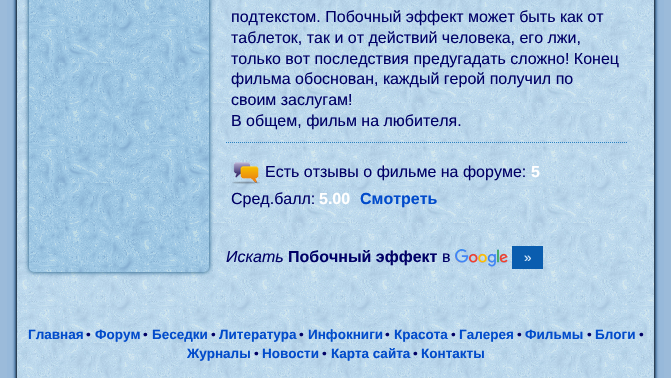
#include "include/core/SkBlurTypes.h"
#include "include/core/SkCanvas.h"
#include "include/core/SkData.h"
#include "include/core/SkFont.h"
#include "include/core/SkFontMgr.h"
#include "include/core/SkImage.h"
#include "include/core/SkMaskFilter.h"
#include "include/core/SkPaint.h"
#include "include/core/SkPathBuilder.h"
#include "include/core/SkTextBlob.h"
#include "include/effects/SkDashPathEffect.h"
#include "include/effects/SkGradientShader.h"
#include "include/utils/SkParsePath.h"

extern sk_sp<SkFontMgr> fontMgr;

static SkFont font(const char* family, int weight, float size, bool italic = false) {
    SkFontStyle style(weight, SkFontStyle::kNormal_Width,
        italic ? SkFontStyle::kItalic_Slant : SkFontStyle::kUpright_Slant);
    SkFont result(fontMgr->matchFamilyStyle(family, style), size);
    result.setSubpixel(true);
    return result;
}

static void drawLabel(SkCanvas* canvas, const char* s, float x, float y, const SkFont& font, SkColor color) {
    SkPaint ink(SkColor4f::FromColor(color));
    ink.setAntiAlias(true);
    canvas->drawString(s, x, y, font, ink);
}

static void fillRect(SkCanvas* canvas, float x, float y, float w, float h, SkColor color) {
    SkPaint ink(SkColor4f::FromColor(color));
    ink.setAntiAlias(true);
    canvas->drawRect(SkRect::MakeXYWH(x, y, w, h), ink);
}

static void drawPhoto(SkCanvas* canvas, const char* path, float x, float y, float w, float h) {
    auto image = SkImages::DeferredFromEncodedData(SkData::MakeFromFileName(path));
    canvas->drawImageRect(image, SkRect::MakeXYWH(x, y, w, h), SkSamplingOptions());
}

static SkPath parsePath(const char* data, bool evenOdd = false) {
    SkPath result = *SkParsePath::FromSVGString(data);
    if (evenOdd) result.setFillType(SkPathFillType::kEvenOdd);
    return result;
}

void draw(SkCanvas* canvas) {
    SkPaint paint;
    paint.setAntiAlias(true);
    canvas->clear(0xFF9BBBDA);
    drawPhoto(canvas, "assets/img1.png", 17, 0, 637, 378);
    drawPhoto(canvas, "assets/img2.png", 7, 0, 657, 378);
    paint.setColor(0xFF034775);
    paint.setMaskFilter(SkMaskFilter::MakeBlur(kNormal_SkBlurStyle, 2.5f));
    canvas->drawRoundRect(SkRect::MakeXYWH(29, -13, 180, 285), 5, 5, paint);
    paint.setMaskFilter(nullptr);
    drawPhoto(canvas, "assets/img3.png", 29, 0, 180, 272);
    paint.setStroke(true);
    paint.setStrokeWidth(1);
    paint.setColor(0xFF2D83C2);
    paint.setPathEffect(SkDashPathEffect::Make({{1, 1}}, 0));
    canvas->drawPath(parsePath("M226 142.5H627"), paint);
    paint.setPathEffect(nullptr);
    SkFont font1 = font("Liberation Sans", 400, 16);
    drawLabel(canvas, "подтекстом. Побочный эффект может быть как от", 231, 22, font1, 0xFF000066);
    drawLabel(canvas, "таблеток, так и от действий человека, его лжи,", 231, 43, font1, 0xFF000066);
    drawLabel(canvas, "только вот последствия предугадать сложно! Конец", 231, 64, font1, 0xFF000066);
    drawLabel(canvas, "фильма обоснован, каждый герой получил по", 231, 84, font1, 0xFF000066);
    drawLabel(canvas, "своим заслугам!", 231, 105, font1, 0xFF000066);
    drawLabel(canvas, "В общем, фильм на любителя.", 231, 126, font1, 0xFF000066);
    drawPhoto(canvas, "assets/img4.png", 232, 162, 28, 23);
    drawLabel(canvas, "Есть отзывы о фильме на форуме:", 265, 177, font1, 0xFF000066);
    SkFont font2 = font("Liberation Sans", 700, 16);
    drawLabel(canvas, "5", 531, 177, font2, 0xFFFFFFFF);
    drawLabel(canvas, "Сред.балл:", 231, 204, font1, 0xFF000066);
    drawLabel(canvas, "5.00", 319, 204, font2, 0xFFFFFFFF);
    drawLabel(canvas, "Смотреть", 360, 204, font2, 0xFF014BCB);
    SkFont font3 = font("Liberation Sans", 400, 16, true);
    drawLabel(canvas, "Искать", 226, 262, font3, 0xFF000066);
    drawLabel(canvas, "Побочный эффект", 288, 262, font2, 0xFF000066);
    drawLabel(canvas, "в", 442, 262, font1, 0xFF000066);
    drawPhoto(canvas, "assets/img5.png", 455, 249, 53, 18);
    fillRect(canvas, 512, 246, 31, 23, 0xFF0A5DAF);
    SkFont font4 = font("Liberation Sans", 400, 13.5f);
    drawLabel(canvas, "»", 524, 262, font4, 0xFFDBECFC);
    SkFont font5 = font("Liberation Sans", 700, 13.5f);
    drawLabel(canvas, "Главная", 28, 339, font5, 0xFF014BCB);
    drawLabel(canvas, "•", 86, 339, font4, 0xFF000066);
    drawLabel(canvas, "Форум", 95, 339, font5, 0xFF014BCB);
    drawLabel(canvas, "•", 143, 339, font4, 0xFF000066);
    drawLabel(canvas, "Беседки", 152, 339, font5, 0xFF014BCB);
    drawLabel(canvas, "•", 211, 339, font4, 0xFF000066);
    drawLabel(canvas, "Литература", 219, 339, font5, 0xFF014BCB);
    drawLabel(canvas, "•", 299, 339, font4, 0xFF000066);
    drawLabel(canvas, "Инфокниги", 308, 339, font5, 0xFF014BCB);
    drawLabel(canvas, "•", 385, 339, font4, 0xFF000066);
    drawLabel(canvas, "Красота", 394, 339, font5, 0xFF014BCB);
    drawLabel(canvas, "•", 451, 339, font4, 0xFF000066);
    drawLabel(canvas, "Галерея", 459, 339, font5, 0xFF014BCB);
    drawLabel(canvas, "•", 517, 339, font4, 0xFF000066);
    drawLabel(canvas, "Фильмы", 525, 339, font5, 0xFF014BCB);
    drawLabel(canvas, "•", 587, 339, font4, 0xFF000066);
    drawLabel(canvas, "Блоги", 595, 339, font5, 0xFF014BCB);
    drawLabel(canvas, "•", 639, 339, font4, 0xFF000066);
    drawLabel(canvas, "Журналы", 187, 358, font5, 0xFF014BCB);
    drawLabel(canvas, "•", 254, 358, font4, 0xFF000066);
    drawLabel(canvas, "Новости", 262, 358, font5, 0xFF014BCB);
    drawLabel(canvas, "•", 322, 358, font4, 0xFF000066);
    drawLabel(canvas, "Карта сайта", 331, 358, font5, 0xFF014BCB);
    drawLabel(canvas, "•", 413, 358, font4, 0xFF000066);
    drawLabel(canvas, "Контакты", 421, 358, font5, 0xFF014BCB);
}
